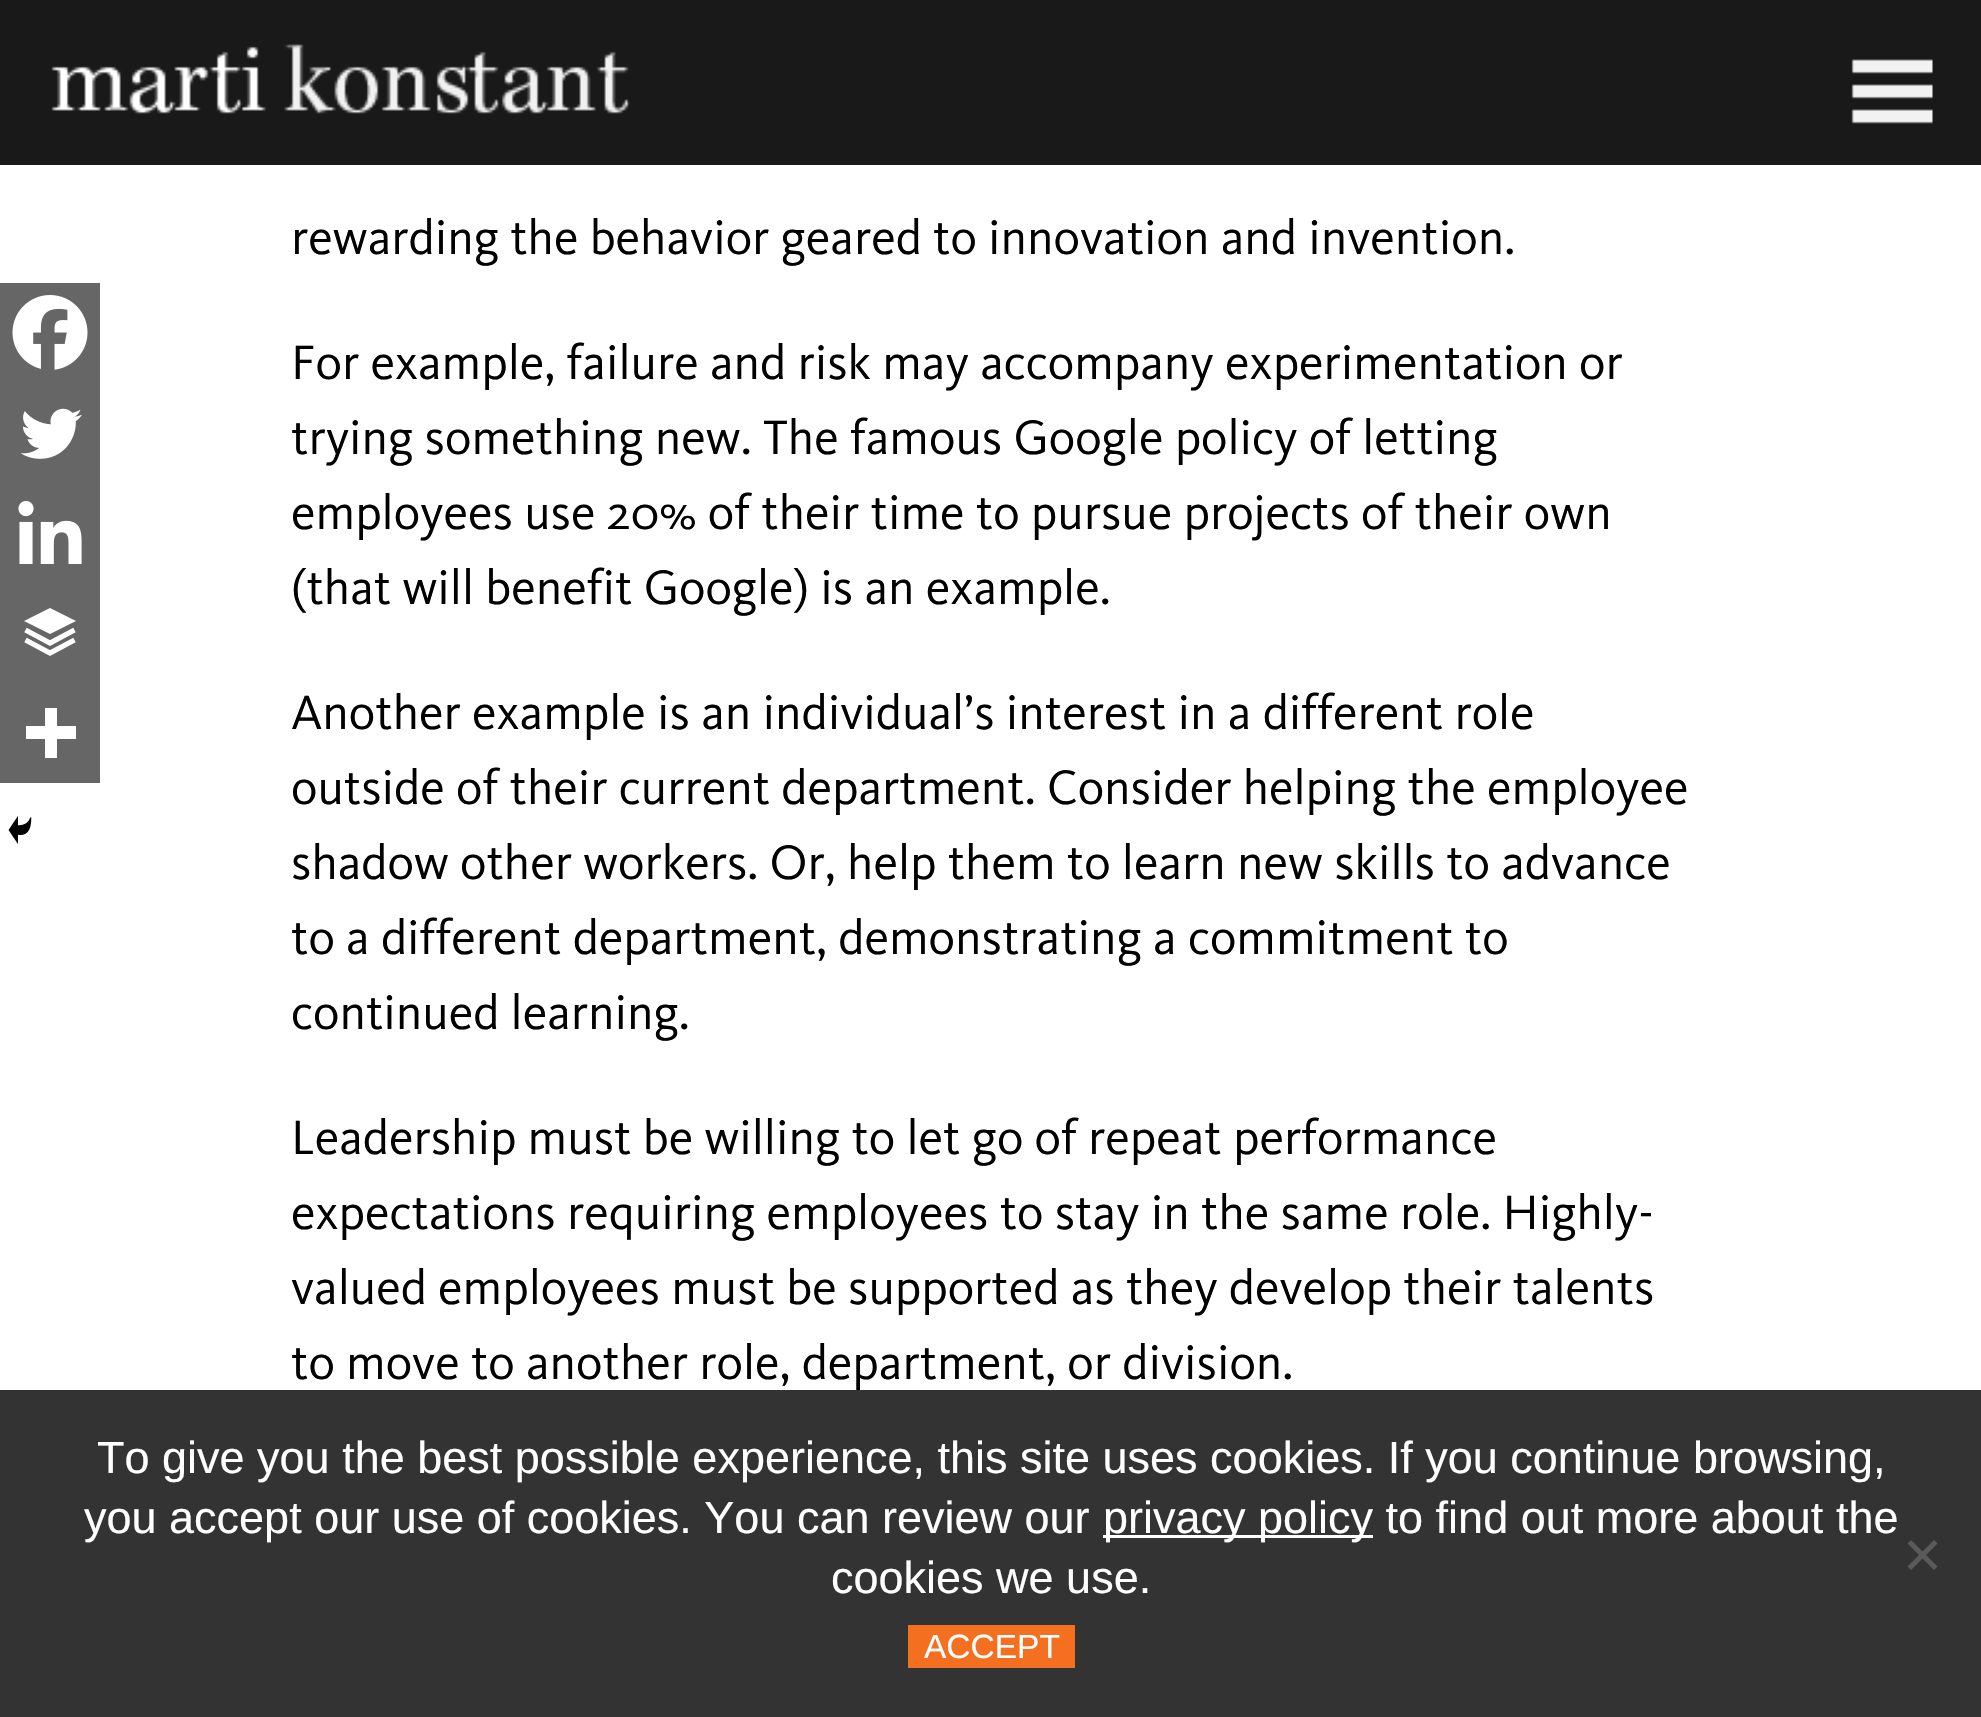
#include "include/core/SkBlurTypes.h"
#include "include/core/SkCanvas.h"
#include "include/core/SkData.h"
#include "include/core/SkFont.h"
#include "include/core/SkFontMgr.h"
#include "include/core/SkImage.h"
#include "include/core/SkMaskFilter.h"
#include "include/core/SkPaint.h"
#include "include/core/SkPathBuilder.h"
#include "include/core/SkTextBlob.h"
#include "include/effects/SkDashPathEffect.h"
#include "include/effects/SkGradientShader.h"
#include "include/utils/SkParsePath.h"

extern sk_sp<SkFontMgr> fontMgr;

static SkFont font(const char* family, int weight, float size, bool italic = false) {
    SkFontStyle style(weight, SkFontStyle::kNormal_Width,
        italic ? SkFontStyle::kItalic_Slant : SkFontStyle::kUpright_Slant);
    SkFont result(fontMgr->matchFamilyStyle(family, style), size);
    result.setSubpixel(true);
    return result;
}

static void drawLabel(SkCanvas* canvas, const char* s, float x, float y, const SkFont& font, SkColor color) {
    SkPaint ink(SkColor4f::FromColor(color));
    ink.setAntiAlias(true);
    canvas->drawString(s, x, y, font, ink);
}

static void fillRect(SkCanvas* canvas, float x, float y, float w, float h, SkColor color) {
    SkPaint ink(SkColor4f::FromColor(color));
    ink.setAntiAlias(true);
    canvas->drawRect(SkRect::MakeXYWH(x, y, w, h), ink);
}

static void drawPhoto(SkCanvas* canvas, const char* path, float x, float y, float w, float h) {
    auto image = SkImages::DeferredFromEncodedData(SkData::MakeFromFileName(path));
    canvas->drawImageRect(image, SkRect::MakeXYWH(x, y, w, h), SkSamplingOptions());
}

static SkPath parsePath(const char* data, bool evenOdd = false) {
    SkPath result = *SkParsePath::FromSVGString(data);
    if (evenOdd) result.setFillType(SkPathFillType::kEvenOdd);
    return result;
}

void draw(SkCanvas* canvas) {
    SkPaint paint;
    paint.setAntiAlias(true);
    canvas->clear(0xFFFFFFFF);
    fillRect(canvas, 0, 0, 1981, 165, 0xE6000000);
    drawPhoto(canvas, "assets/img1.png", 51, 44, 579, 70);
    drawPhoto(canvas, "assets/img2.png", 1851, 59, 82, 65);
    SkFont font1 = font("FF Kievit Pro", 400, 50);
    drawLabel(canvas, "rewarding the behavior geared to innovation and invention.", 291, 254, font1, 0xFF000000);
    fillRect(canvas, 0, 283, 100, 500, 0xFF666666);
    drawPhoto(canvas, "assets/img3.png", 12, 295, 76, 75);
    drawPhoto(canvas, "assets/img4.png", 20, 408, 62, 51);
    drawPhoto(canvas, "assets/img5.png", 18, 501, 64, 63);
    paint.setColor(0xFFFFFFFF);
    canvas->drawPath(parsePath("M50 608L24 621L50 634L76 621Z"), paint);
    paint.setStroke(true);
    paint.setStrokeWidth(5.1f);
    canvas->drawPath(parsePath("M25.5 630L50 643L74.5 630M25.5 640L50 653L74.5 640"), paint);
    paint.setStroke(false);
    canvas->drawPath(parsePath("M57 726V708H45V726H26V739H45V758H57V739H76V726Z", true), paint);
    drawPhoto(canvas, "assets/img6.png", 8, 816, 24, 28);
    drawLabel(canvas, "For example, failure and risk may accompany experimentation or", 291, 379, font1, 0xFF000000);
    drawLabel(canvas, "trying something new. The famous Google policy of letting", 291, 454, font1, 0xFF000000);
    drawLabel(canvas, "employees use 20% of their time to pursue projects of their own", 291, 529, font1, 0xFF000000);
    drawLabel(canvas, "(that will benefit Google) is an example.", 291, 604, font1, 0xFF000000);
    drawLabel(canvas, "Another example is an individual’s interest in a different role", 291, 729, font1, 0xFF000000);
    drawLabel(canvas, "outside of their current department. Consider helping the employee", 291, 804, font1, 0xFF000000);
    drawLabel(canvas, "shadow other workers. Or, help them to learn new skills to advance", 291, 879, font1, 0xFF000000);
    drawLabel(canvas, "to a different department, demonstrating a commitment to", 291, 954, font1, 0xFF000000);
    drawLabel(canvas, "continued learning.", 291, 1029, font1, 0xFF000000);
    drawLabel(canvas, "Leadership must be willing to let go of repeat performance", 291, 1154, font1, 0xFF000000);
    drawLabel(canvas, "expectations requiring employees to stay in the same role. Highly-", 291, 1229, font1, 0xFF000000);
    drawLabel(canvas, "valued employees must be supported as they develop their talents", 291, 1304, font1, 0xFF000000);
    drawLabel(canvas, "to move to another role, department, or division.", 291, 1379, font1, 0xFF000000);
    fillRect(canvas, 0, 1390, 1981, 327, 0xFF333333);
    SkFont font2 = font("Liberation Sans", 400, 45);
    drawLabel(canvas, "To give you the best possible experience, this site uses cookies. If you continue browsing,", 97, 1473, font2, 0xFFFFFFFF);
    drawLabel(canvas, "you accept our use of cookies. You can review our", 84, 1533, font2, 0xFFFFFFFF);
    fillRect(canvas, 1103, 1535, 270, 3, 0xFFFFFFFF);
    drawLabel(canvas, "privacy policy to find out more about the", 1103, 1533, font2, 0xFFFFFFFF);
    drawLabel(canvas, "cookies we use.", 831, 1593, font2, 0xFFFFFFFF);
    paint.setColor(0xFF5A5A5A);
    canvas->drawPath(parsePath("M1934 1540L1937.5 1543.5L1911 1570L1907.5 1566.5Z"), paint);
    canvas->drawPath(parsePath("M1907.5 1543.5L1911 1540L1937.5 1566.5L1934 1570Z"), paint);
    fillRect(canvas, 908, 1625, 167, 43, 0xFFF56F21);
    SkFont font3 = font("Liberation Sans", 400, 33.5f);
    drawLabel(canvas, "ACCEPT", 924, 1658, font3, 0xFFFFFFFF);
}
